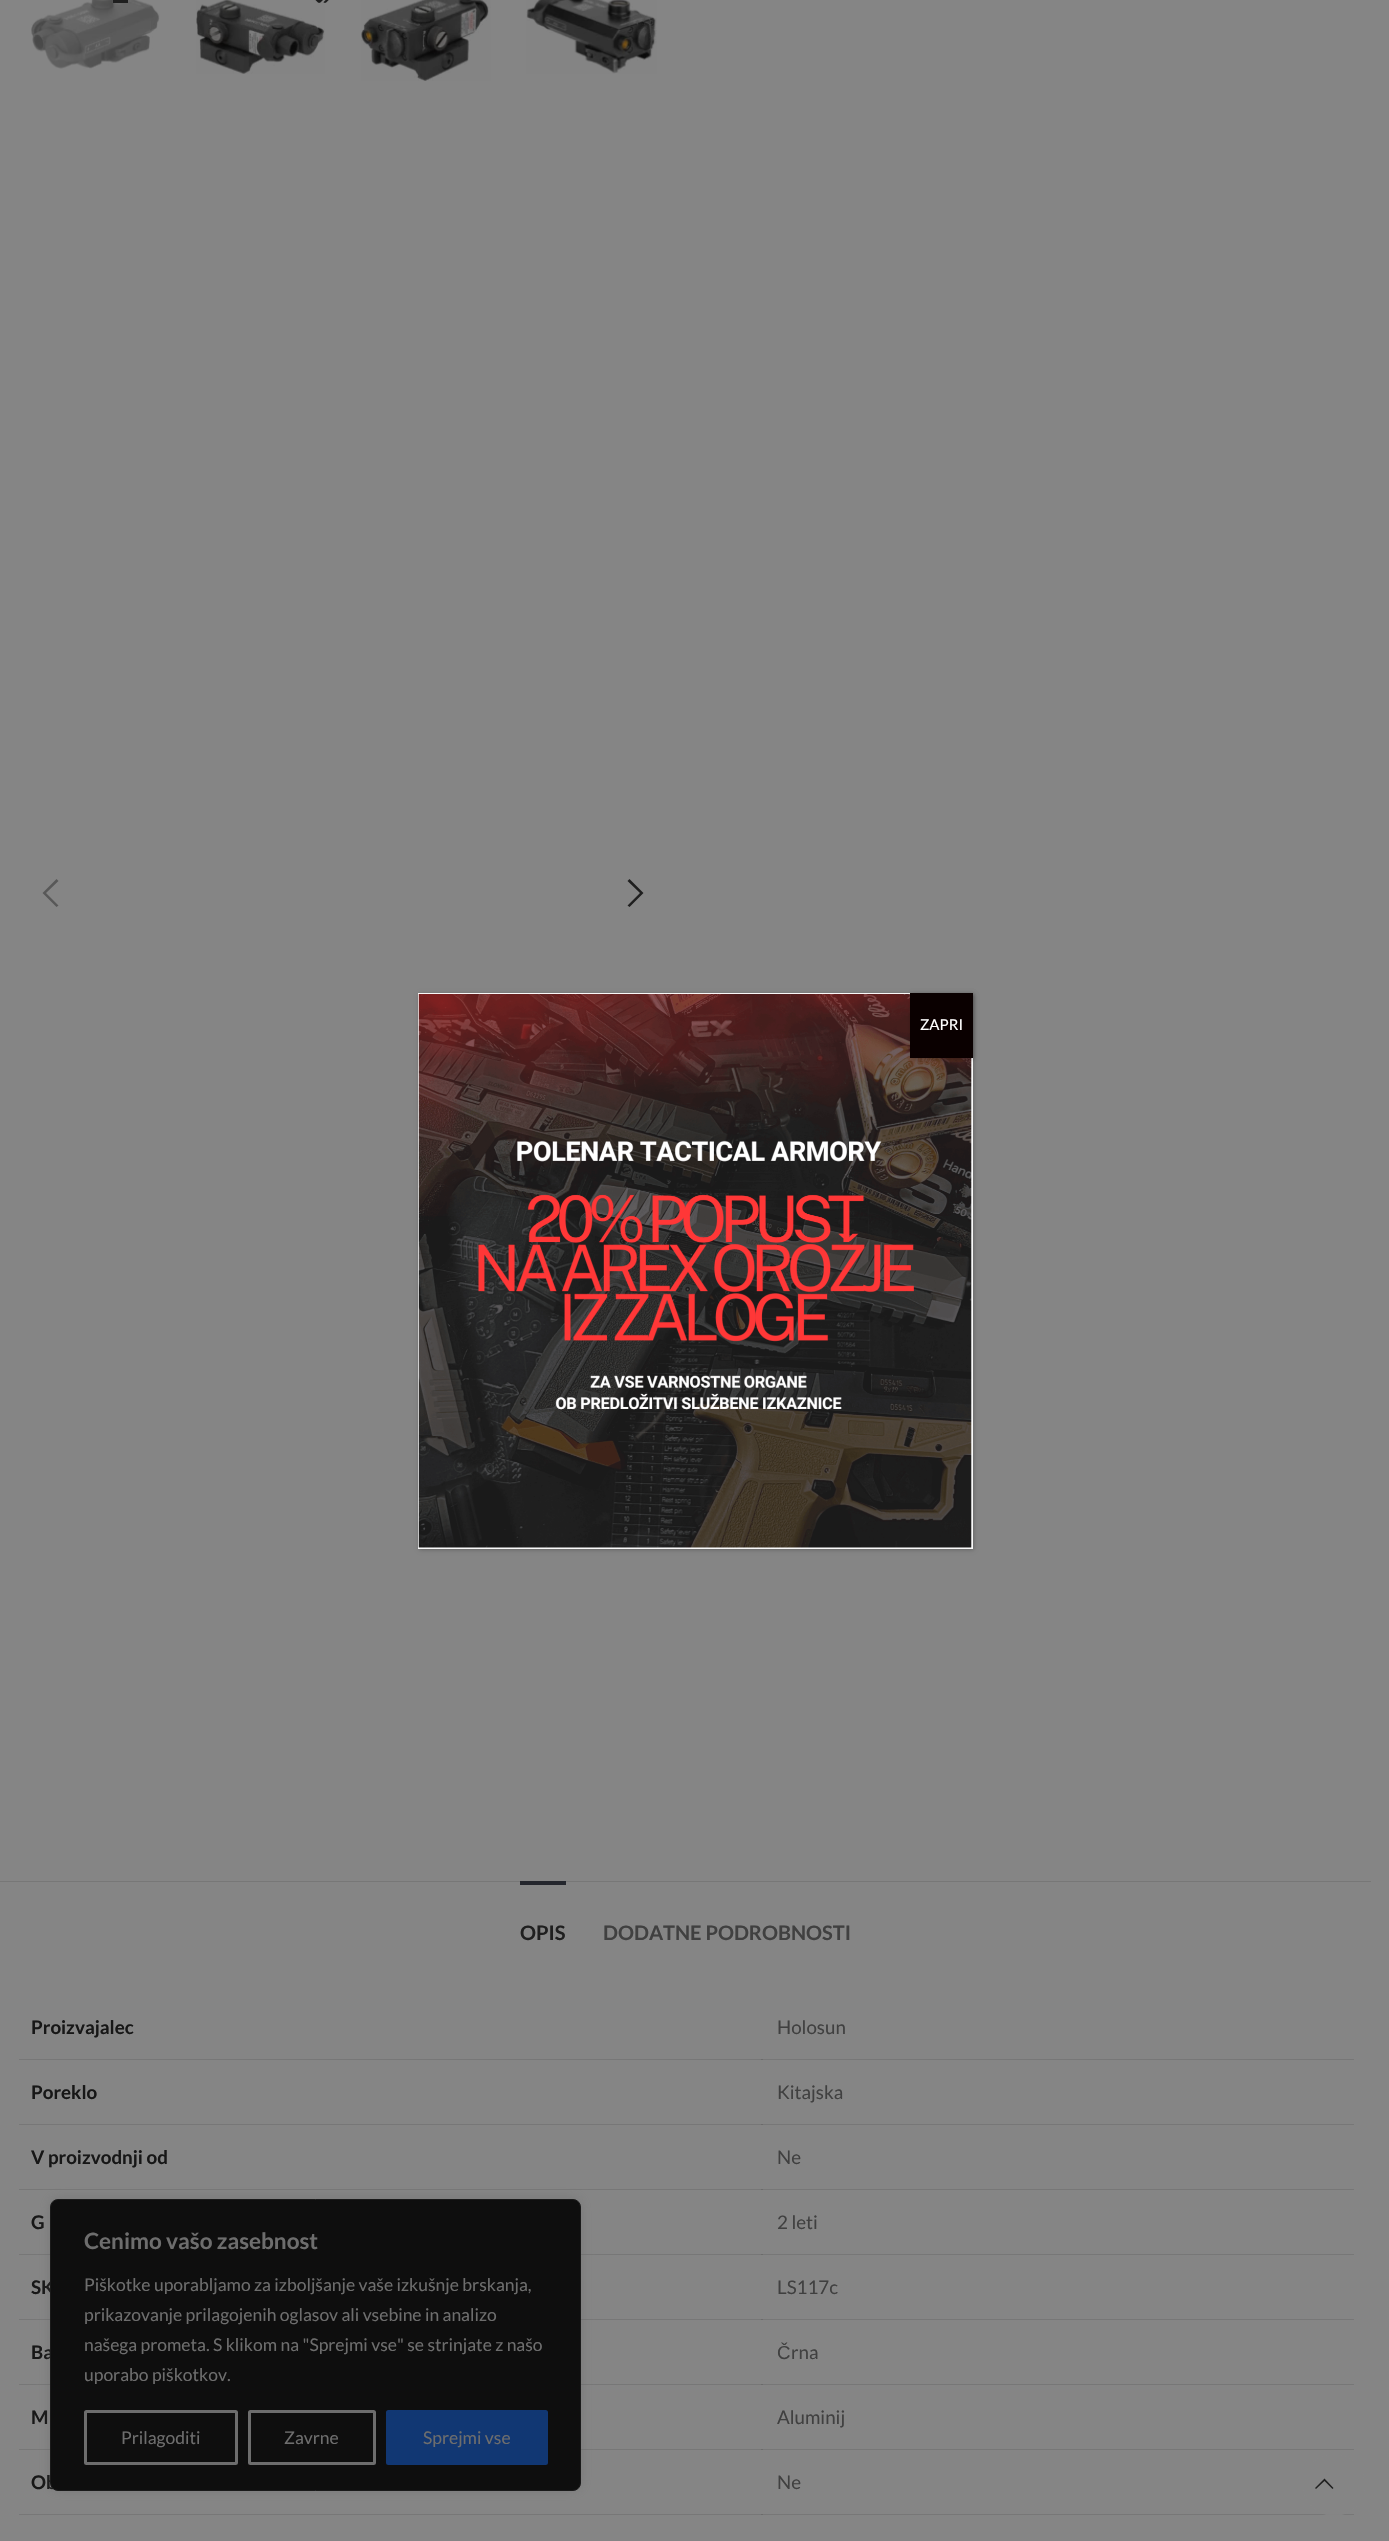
#include "include/core/SkBlurTypes.h"
#include "include/core/SkCanvas.h"
#include "include/core/SkData.h"
#include "include/core/SkFont.h"
#include "include/core/SkFontMgr.h"
#include "include/core/SkImage.h"
#include "include/core/SkMaskFilter.h"
#include "include/core/SkPaint.h"
#include "include/core/SkPathBuilder.h"
#include "include/core/SkTextBlob.h"
#include "include/effects/SkDashPathEffect.h"
#include "include/effects/SkGradientShader.h"
#include "include/utils/SkParsePath.h"

extern sk_sp<SkFontMgr> fontMgr;

static SkFont font(const char* family, int weight, float size, bool italic = false) {
    SkFontStyle style(weight, SkFontStyle::kNormal_Width,
        italic ? SkFontStyle::kItalic_Slant : SkFontStyle::kUpright_Slant);
    SkFont result(fontMgr->matchFamilyStyle(family, style), size);
    result.setSubpixel(true);
    return result;
}

static void drawLabel(SkCanvas* canvas, const char* s, float x, float y, const SkFont& font, SkColor color) {
    SkPaint ink(SkColor4f::FromColor(color));
    ink.setAntiAlias(true);
    canvas->drawString(s, x, y, font, ink);
}

static void fillRect(SkCanvas* canvas, float x, float y, float w, float h, SkColor color) {
    SkPaint ink(SkColor4f::FromColor(color));
    ink.setAntiAlias(true);
    canvas->drawRect(SkRect::MakeXYWH(x, y, w, h), ink);
}

static void drawPhoto(SkCanvas* canvas, const char* path, float x, float y, float w, float h) {
    auto image = SkImages::DeferredFromEncodedData(SkData::MakeFromFileName(path));
    canvas->drawImageRect(image, SkRect::MakeXYWH(x, y, w, h), SkSamplingOptions());
}

static SkPath parsePath(const char* data, bool evenOdd = false) {
    SkPath result = *SkParsePath::FromSVGString(data);
    if (evenOdd) result.setFillType(SkPathFillType::kEvenOdd);
    return result;
}

void draw(SkCanvas* canvas) {
    SkPaint paint;
    paint.setAntiAlias(true);
    canvas->clear(0xFF858585);
    fillRect(canvas, 19, 2059, 1335, 1, 0xFF777777);
    fillRect(canvas, 19, 2124, 1335, 1, 0xFF777777);
    fillRect(canvas, 19, 2189, 1335, 1, 0xFF777777);
    fillRect(canvas, 19, 2254, 1335, 1, 0xFF777777);
    fillRect(canvas, 19, 2319, 1335, 1, 0xFF777777);
    fillRect(canvas, 19, 2384, 1335, 1, 0xFF777777);
    fillRect(canvas, 19, 2449, 1335, 1, 0xFF777777);
    fillRect(canvas, 19, 2514, 1335, 1, 0xFF777777);
    paint.setColor(0x3B020202);
    paint.setMaskFilter(SkMaskFilter::MakeBlur(kNormal_SkBlurStyle, 2));
    canvas->drawRect(SkRect::MakeXYWH(419, 994, 555, 556), paint);
    paint.setMaskFilter(nullptr);
    fillRect(canvas, 418, 993, 555, 556, 0xFFF9F9F9);
    drawPhoto(canvas, "assets/img1.png", 418, 994, 554, 554);
    paint.setMaskFilter(SkMaskFilter::MakeBlur(kNormal_SkBlurStyle, 2));
    canvas->drawRect(SkRect::MakeXYWH(911, 994, 63, 65), paint);
    paint.setMaskFilter(nullptr);
    fillRect(canvas, 910, 993, 63, 65, 0xFF0A0000);
    SkFont font1 = font("Lato", 400, 15);
    drawLabel(canvas, "ZAPRI", 920, 1030, font1, 0xFFFFFFFF);
    drawPhoto(canvas, "assets/img3.png", 31, 0, 129, 69);
    fillRect(canvas, 113, 0, 15, 3, 0xFF1F1F1F);
    drawPhoto(canvas, "assets/img4.png", 196, 0, 129, 74);
    drawPhoto(canvas, "assets/img2.png", 315, 0, 14, 3);
    drawPhoto(canvas, "assets/img5.png", 361, 0, 130, 81);
    drawPhoto(canvas, "assets/img6.png", 526, 0, 131, 74);
    paint.setColor(0xFF585858);
    canvas->drawPath(parsePath("M58.5 881L56.5 879L42.5 893L56.5 907L58.5 905.5L46 893Z"), paint);
    paint.setColor(0xFF1F1F1F);
    canvas->drawPath(parsePath("M627.5 881L640 893L627.5 905.5L629.5 907L643.5 893L629.5 879Z"), paint);
    fillRect(canvas, 0, 1881, 1371, 1, 0xFF777777);
    fillRect(canvas, 520, 1881, 46, 4, 0xFF24262D);
    SkFont font2 = font("Lato", 700, 20);
    drawLabel(canvas, "OPIS", 520, 1940, font2, 0xFF1F1F1F);
    drawLabel(canvas, "DODATNE PODROBNOSTI", 603, 1940, font2, 0xFF404040);
    SkFont font3 = font("Lato", 700, 18.75f);
    drawLabel(canvas, "Proizvajalec", 31, 2034, font3, 0xFF171717);
    fillRect(canvas, 761, 2059, 2, 1, 0xFF6B6B6B);
    SkFont font4 = font("Lato", 400, 18.75f);
    drawLabel(canvas, "Holosun", 777, 2034, font4, 0xFF404040);
    drawLabel(canvas, "Poreklo", 31, 2099, font3, 0xFF171717);
    fillRect(canvas, 761, 2124, 2, 1, 0xFF6B6B6B);
    drawLabel(canvas, "Kitajska", 777, 2099, font4, 0xFF404040);
    drawLabel(canvas, "V proizvodnji od", 31, 2164, font3, 0xFF171717);
    fillRect(canvas, 761, 2189, 2, 1, 0xFF6B6B6B);
    drawLabel(canvas, "Ne", 777, 2164, font4, 0xFF404040);
    drawLabel(canvas, "G", 31, 2229, font3, 0xFF171717);
    fillRect(canvas, 761, 2254, 2, 1, 0xFF6B6B6B);
    drawLabel(canvas, "2 leti", 777, 2229, font4, 0xFF404040);
    drawLabel(canvas, "SK", 31, 2294, font3, 0xFF171717);
    fillRect(canvas, 761, 2319, 2, 1, 0xFF6B6B6B);
    drawLabel(canvas, "LS117c", 777, 2294, font4, 0xFF404040);
    drawLabel(canvas, "Ba", 31, 2359, font3, 0xFF171717);
    fillRect(canvas, 761, 2384, 2, 1, 0xFF6B6B6B);
    SkFont font5 = font("Liberation Sans", 400, 18.75f);
    drawLabel(canvas, "Č", 777, 2359, font5, 0xFF404040);
    drawLabel(canvas, "rna", 791, 2359, font4, 0xFF404040);
    drawLabel(canvas, "M", 31, 2424, font3, 0xFF171717);
    fillRect(canvas, 761, 2449, 2, 1, 0xFF6B6B6B);
    drawLabel(canvas, "Aluminij", 777, 2424, font4, 0xFF404040);
    drawLabel(canvas, "Ob", 31, 2489, font3, 0xFF171717);
    fillRect(canvas, 761, 2514, 2, 1, 0xFF6B6B6B);
    drawLabel(canvas, "Ne", 777, 2489, font4, 0xFF404040);
    paint.setColor(0x4D5B5B5B);
    paint.setMaskFilter(SkMaskFilter::MakeBlur(kNormal_SkBlurStyle, 6));
    canvas->drawRoundRect(SkRect::MakeXYWH(50, 2198, 531, 292), 8, 8, paint);
    paint.setMaskFilter(nullptr);
    paint.setColor(0xFF0E0E0E);
    canvas->drawRoundRect(SkRect::MakeXYWH(50.5f, 2199.5f, 530, 291), 7.5f, 7.5f, paint);
    paint.setStroke(true);
    paint.setStrokeWidth(1);
    paint.setColor(0xFF1A1A1A);
    canvas->drawRoundRect(SkRect::MakeXYWH(50.5f, 2199.5f, 530, 291), 7.5f, 7.5f, paint);
    SkFont font6 = font("Lato", 700, 22.5f);
    drawLabel(canvas, "Cenimo vašo zasebnost", 84, 2249, font6, 0xFF6D6D6D);
    SkFont font7 = font("Lato", 400, 17.5f);
    drawLabel(canvas, "Piškotke uporabljamo za izboljšanje vaše izkušnje brskanja,", 84, 2291, font7, 0xFF6D6D6D);
    drawLabel(canvas, "prikazovanje prilagojenih oglasov ali vsebine in analizo", 84, 2321, font7, 0xFF6D6D6D);
    drawLabel(canvas, "našega prometa. S klikom na \"Sprejmi vse\" se strinjate z našo", 84, 2351, font7, 0xFF6D6D6D);
    drawLabel(canvas, "uporabo piškotkov.", 84, 2381, font7, 0xFF6D6D6D);
    paint.setStrokeWidth(3);
    paint.setColor(0xFF6D6D6D);
    canvas->drawRoundRect(SkRect::MakeXYWH(85.5f, 2411.5f, 151, 52), 1, 1, paint);
    drawLabel(canvas, "Prilagoditi", 121, 2444, font7, 0xFF6D6D6D);
    canvas->drawRoundRect(SkRect::MakeXYWH(249.5f, 2411.5f, 125, 52), 1, 1, paint);
    drawLabel(canvas, "Zavrne", 284, 2444, font7, 0xFF6D6D6D);
    paint.setStroke(false);
    paint.setColor(0xFF113773);
    canvas->drawRoundRect(SkRect::MakeXYWH(387.5f, 2411.5f, 159, 52), 1, 1, paint);
    paint.setStroke(true);
    canvas->drawRoundRect(SkRect::MakeXYWH(387.5f, 2411.5f, 159, 52), 1, 1, paint);
    drawLabel(canvas, "Sprejmi vse", 423, 2444, font7, 0xFF6D6D6D);
    paint.setStroke(false);
    paint.setColor(0xE6858585);
    canvas->drawCircle(1334, 2485, 31, paint);
    paint.setColor(0xFF1F1F1F);
    canvas->drawPath(parsePath("M1332.5 2489L1333.5 2488L1324.5 2478.5L1315 2488L1316 2489L1324.5 2481Z"), paint);
}
